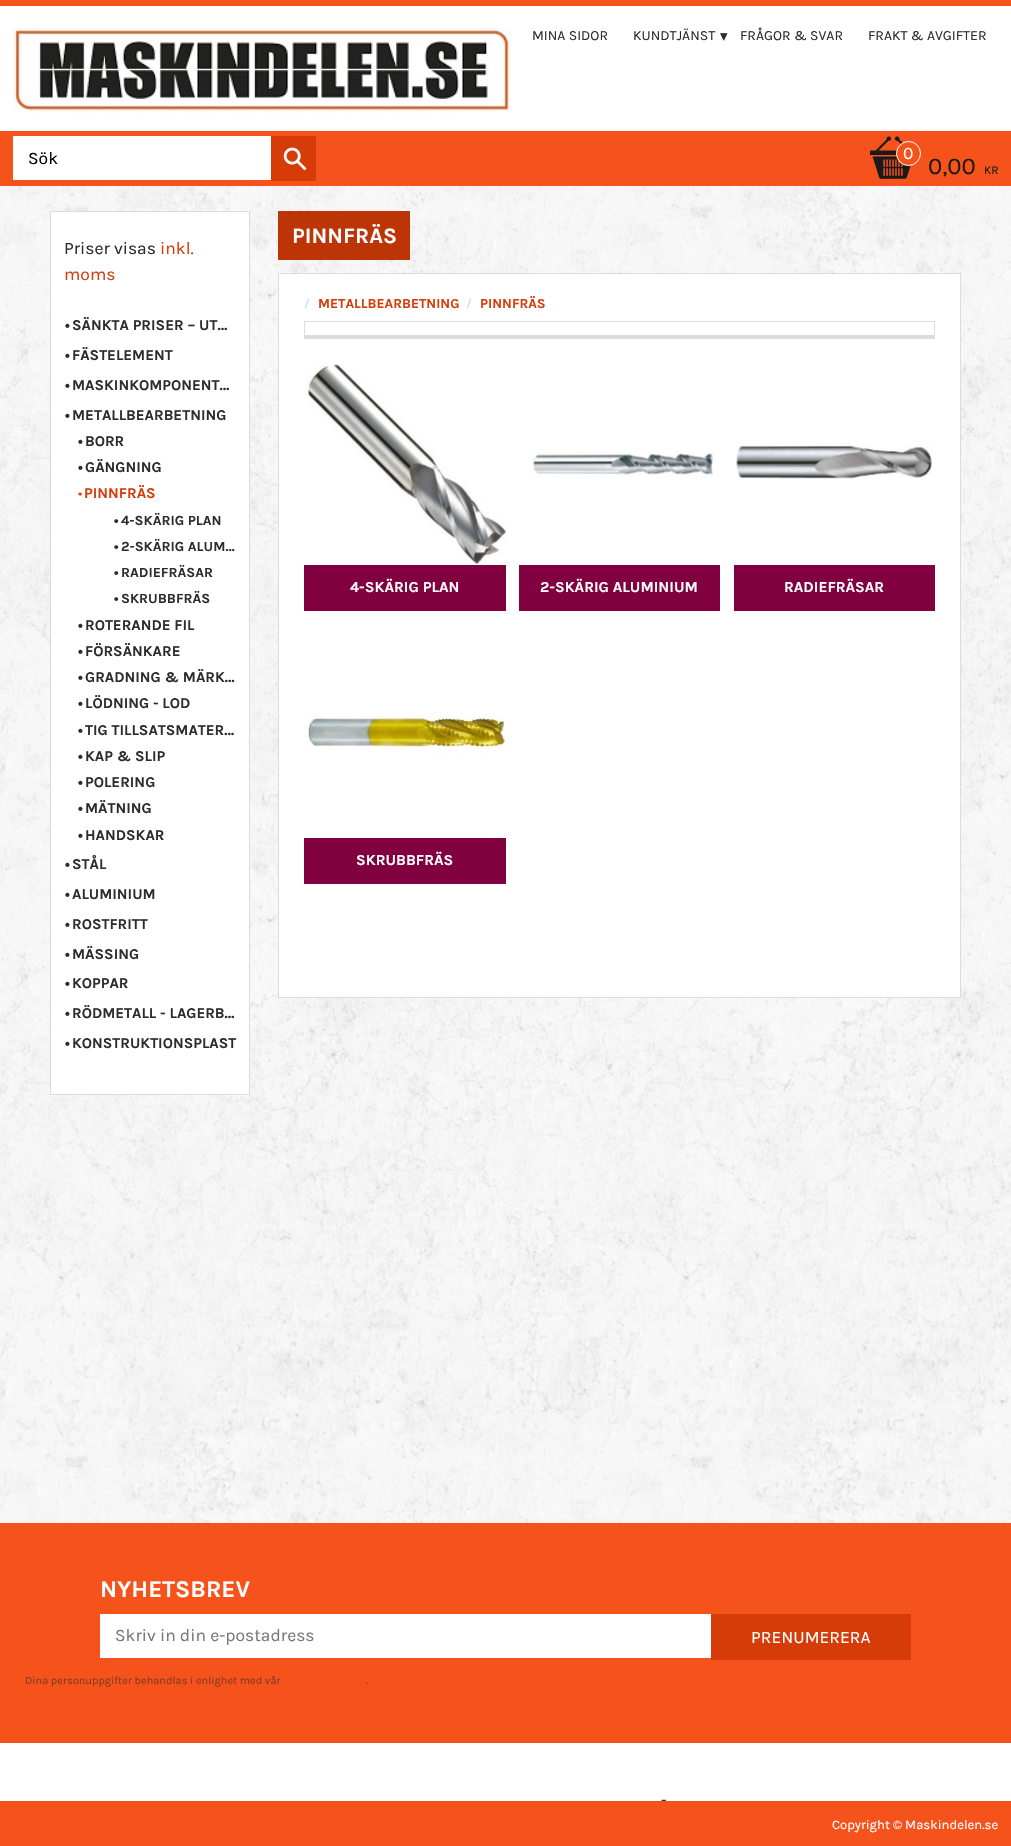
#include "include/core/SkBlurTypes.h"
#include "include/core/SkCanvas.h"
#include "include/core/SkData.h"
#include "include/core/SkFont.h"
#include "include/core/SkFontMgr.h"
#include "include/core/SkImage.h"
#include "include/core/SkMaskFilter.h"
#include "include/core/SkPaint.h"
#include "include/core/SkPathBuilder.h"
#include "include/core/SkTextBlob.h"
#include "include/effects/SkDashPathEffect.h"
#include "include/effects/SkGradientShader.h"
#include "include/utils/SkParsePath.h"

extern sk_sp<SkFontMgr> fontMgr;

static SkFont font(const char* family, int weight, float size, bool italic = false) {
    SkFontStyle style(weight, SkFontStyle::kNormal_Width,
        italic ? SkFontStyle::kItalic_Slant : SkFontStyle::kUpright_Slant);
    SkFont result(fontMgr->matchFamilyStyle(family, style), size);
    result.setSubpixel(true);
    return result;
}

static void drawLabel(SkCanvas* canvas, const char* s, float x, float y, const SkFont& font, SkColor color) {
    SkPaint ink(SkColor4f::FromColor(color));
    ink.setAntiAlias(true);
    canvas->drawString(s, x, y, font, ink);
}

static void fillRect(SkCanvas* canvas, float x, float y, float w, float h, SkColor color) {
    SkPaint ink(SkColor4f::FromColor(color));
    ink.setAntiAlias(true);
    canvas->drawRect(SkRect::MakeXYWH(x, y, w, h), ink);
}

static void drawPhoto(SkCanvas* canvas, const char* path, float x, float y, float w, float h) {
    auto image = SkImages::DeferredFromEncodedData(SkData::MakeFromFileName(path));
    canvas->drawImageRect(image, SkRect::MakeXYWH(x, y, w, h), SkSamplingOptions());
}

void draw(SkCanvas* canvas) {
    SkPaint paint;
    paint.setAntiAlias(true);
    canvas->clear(0xFFFFFFFF);
    drawPhoto(canvas, "assets/img1.png", 0, 186, 1011, 1337);
    fillRect(canvas, 0, 0, 1011, 6, 0xFFF6521B);
    drawPhoto(canvas, "assets/img2.png", 12, 27, 499, 86);
    SkFont font1 = font("Karla", 400, 14);
    drawLabel(canvas, "MINA SIDOR", 532, 40, font1, 0xFF2C2C2C);
    drawLabel(canvas, "KUNDTJÄNST", 633, 40, font1, 0xFF2C2C2C);
    SkFont font2 = font("DejaVu Sans", 400, 15);
    drawLabel(canvas, "▾", 720, 41, font2, 0xFF2C2C2C);
    drawLabel(canvas, "FRÅGOR & SVAR", 740, 40, font1, 0xFF2C2C2C);
    drawLabel(canvas, "FRAKT & AVGIFTER", 868, 40, font1, 0xFF2C2C2C);
    fillRect(canvas, 0, 131, 1011, 55, 0xFFF6521B);
    fillRect(canvas, 13, 136, 258, 44, 0xFFFFFFFF);
    SkFont font3 = font("Karla", 400, 17.5f);
    drawLabel(canvas, "Sök", 28, 164, font3, 0xFF000000);
    fillRect(canvas, 271, 136, 45, 45, 0xFFD63C08);
    drawPhoto(canvas, "assets/img3.png", 283, 147, 24, 24);
    drawPhoto(canvas, "assets/img4.png", 870, 136, 41, 43);
    paint.setColor(0xFFF6521B);
    canvas->drawCircle(908.5f, 153.5f, 12, paint);
    paint.setStroke(true);
    paint.setStrokeWidth(1);
    paint.setColor(0xFFFFFFFF);
    canvas->drawCircle(908.5f, 153.5f, 12, paint);
    drawLabel(canvas, "0", 903, 159, font3, 0xFFFFFFFF);
    SkFont font4 = font("Karla", 400, 24);
    drawLabel(canvas, "0,00", 928, 174, font4, 0xFF1A1A18);
    SkFont font5 = font("Karla", 400, 12);
    drawLabel(canvas, "KR", 984, 174, font5, 0xFF1A1A18);
    paint.setStroke(false);
    canvas->drawRect(SkRect::MakeXYWH(50.5f, 211.5f, 199, 883), paint);
    paint.setStroke(true);
    paint.setColor(0xFFDCDCDC);
    canvas->drawRect(SkRect::MakeXYWH(50.5f, 211.5f, 199, 883), paint);
    drawLabel(canvas, "Priser visas", 64, 254, font3, 0xFF2C2C2C);
    drawLabel(canvas, "inkl.", 160, 254, font3, 0xFFD63C08);
    drawLabel(canvas, "moms", 64, 280, font3, 0xFFD63C08);
    SkFont font6 = font("Karla", 700, 15);
    drawLabel(canvas, "•", 65, 330, font6, 0xFF2C2C2C);
    drawLabel(canvas, "SÄNKTA PRISER – UT…", 72, 330, font6, 0xFF2C2C2C);
    drawLabel(canvas, "•", 65, 360, font6, 0xFF2C2C2C);
    drawLabel(canvas, "FÄSTELEMENT", 72, 360, font6, 0xFF2C2C2C);
    drawLabel(canvas, "•", 65, 390, font6, 0xFF2C2C2C);
    drawLabel(canvas, "MASKINKOMPONENT…", 72, 390, font6, 0xFF2C2C2C);
    drawLabel(canvas, "•", 65, 420, font6, 0xFF2C2C2C);
    drawLabel(canvas, "METALLBEARBETNING", 72, 420, font6, 0xFF2C2C2C);
    drawLabel(canvas, "•", 78, 446, font6, 0xFF2C2C2C);
    drawLabel(canvas, "BORR", 85, 446, font6, 0xFF2C2C2C);
    drawLabel(canvas, "•", 78, 472, font6, 0xFF2C2C2C);
    drawLabel(canvas, "GÄNGNING", 85, 472, font6, 0xFF2C2C2C);
    SkFont font7 = font("Karla", 400, 15);
    drawLabel(canvas, "•", 78, 498, font7, 0xFFD63C08);
    drawLabel(canvas, "PINNFRÄS", 84, 498, font6, 0xFFD63C08);
    SkFont font8 = font("Karla", 700, 14);
    drawLabel(canvas, "•", 114, 525, font8, 0xFF2C2C2C);
    drawLabel(canvas, "4-SKÄRIG PLAN", 121, 525, font8, 0xFF2C2C2C);
    drawLabel(canvas, "•", 114, 551, font8, 0xFF2C2C2C);
    drawLabel(canvas, "2-SKÄRIG ALUM…", 121, 551, font8, 0xFF2C2C2C);
    drawLabel(canvas, "•", 114, 577, font8, 0xFF2C2C2C);
    drawLabel(canvas, "RADIEFRÄSAR", 121, 577, font8, 0xFF2C2C2C);
    drawLabel(canvas, "•", 114, 603, font8, 0xFF2C2C2C);
    drawLabel(canvas, "SKRUBBFRÄS", 121, 603, font8, 0xFF2C2C2C);
    drawLabel(canvas, "•", 78, 630, font6, 0xFF2C2C2C);
    drawLabel(canvas, "ROTERANDE FIL", 85, 630, font6, 0xFF2C2C2C);
    drawLabel(canvas, "•", 78, 656, font6, 0xFF2C2C2C);
    drawLabel(canvas, "FÖRSÄNKARE", 85, 656, font6, 0xFF2C2C2C);
    drawLabel(canvas, "•", 78, 682, font6, 0xFF2C2C2C);
    drawLabel(canvas, "GRADNING & MÄRK…", 85, 682, font6, 0xFF2C2C2C);
    drawLabel(canvas, "•", 78, 708, font6, 0xFF2C2C2C);
    drawLabel(canvas, "LÖDNING - LOD", 85, 708, font6, 0xFF2C2C2C);
    drawLabel(canvas, "•", 78, 735, font6, 0xFF2C2C2C);
    drawLabel(canvas, "TIG TILLSATSMATER…", 85, 735, font6, 0xFF2C2C2C);
    drawLabel(canvas, "•", 78, 761, font6, 0xFF2C2C2C);
    drawLabel(canvas, "KAP & SLIP", 85, 761, font6, 0xFF2C2C2C);
    drawLabel(canvas, "•", 78, 787, font6, 0xFF2C2C2C);
    drawLabel(canvas, "POLERING", 85, 787, font6, 0xFF2C2C2C);
    drawLabel(canvas, "•", 78, 813, font6, 0xFF2C2C2C);
    drawLabel(canvas, "MÄTNING", 85, 813, font6, 0xFF2C2C2C);
    drawLabel(canvas, "•", 78, 840, font6, 0xFF2C2C2C);
    drawLabel(canvas, "HANDSKAR", 85, 840, font6, 0xFF2C2C2C);
    drawLabel(canvas, "•", 65, 869, font6, 0xFF2C2C2C);
    drawLabel(canvas, "STÅL", 72, 869, font6, 0xFF2C2C2C);
    drawLabel(canvas, "•", 65, 899, font6, 0xFF2C2C2C);
    drawLabel(canvas, "ALUMINIUM", 72, 899, font6, 0xFF2C2C2C);
    drawLabel(canvas, "•", 65, 929, font6, 0xFF2C2C2C);
    drawLabel(canvas, "ROSTFRITT", 72, 929, font6, 0xFF2C2C2C);
    drawLabel(canvas, "•", 65, 959, font6, 0xFF2C2C2C);
    drawLabel(canvas, "MÄSSING", 72, 959, font6, 0xFF2C2C2C);
    drawLabel(canvas, "•", 65, 988, font6, 0xFF2C2C2C);
    drawLabel(canvas, "KOPPAR", 72, 988, font6, 0xFF2C2C2C);
    drawLabel(canvas, "•", 65, 1018, font6, 0xFF2C2C2C);
    drawLabel(canvas, "RÖDMETALL - LAGERB…", 72, 1018, font6, 0xFF2C2C2C);
    drawLabel(canvas, "•", 65, 1048, font6, 0xFF2C2C2C);
    drawLabel(canvas, "KONSTRUKTIONSPLAST", 72, 1048, font6, 0xFF2C2C2C);
    fillRect(canvas, 278, 211, 132, 49, 0xFFBD3507);
    SkFont font9 = font("Karla", 700, 22);
    drawLabel(canvas, "PINNFRÄS", 292, 243, font9, 0xFFFFFFFF);
    paint.setStroke(false);
    paint.setColor(0xFFFFFFFF);
    canvas->drawRect(SkRect::MakeXYWH(278.5f, 273.5f, 682, 724), paint);
    paint.setStroke(true);
    paint.setColor(0xFFDCDCDC);
    canvas->drawRect(SkRect::MakeXYWH(278.5f, 273.5f, 682, 724), paint);
    SkFont font10 = font("Liberation Serif", 400, 14);
    drawLabel(canvas, "/", 305, 308, font10, 0xFFC3C3C3);
    SkFont font11 = font("Karla", 700, 13.75f);
    drawLabel(canvas, "METALLBEARBETNING", 318, 308, font11, 0xFFD63C08);
    drawLabel(canvas, "/", 467, 308, font10, 0xFFC3C3C3);
    drawLabel(canvas, "PINNFRÄS", 480, 308, font11, 0xFFD63C08);
    canvas->drawRect(SkRect::MakeXYWH(304.5f, 321.5f, 630, 14), paint);
    fillRect(canvas, 304, 336, 631, 3, 0xFFDCDCDC);
    drawPhoto(canvas, "assets/img5.png", 307, 364, 200, 201);
    fillRect(canvas, 304, 565, 202, 46, 0xFF800040);
    SkFont font12 = font("Karla", 700, 15.25f);
    drawLabel(canvas, "4-SKÄRIG PLAN", 350, 592, font12, 0xFFFFFFFF);
    drawPhoto(canvas, "assets/img6.png", 532, 451, 181, 26);
    fillRect(canvas, 519, 565, 201, 46, 0xFF800040);
    drawLabel(canvas, "2-SKÄRIG ALUMINIUM", 540, 592, font12, 0xFFFFFFFF);
    drawPhoto(canvas, "assets/img7.png", 736, 445, 196, 34);
    fillRect(canvas, 734, 565, 201, 46, 0xFF800040);
    drawLabel(canvas, "RADIEFRÄSAR", 784, 592, font12, 0xFFFFFFFF);
    drawPhoto(canvas, "assets/img8.png", 308, 712, 199, 42);
    fillRect(canvas, 304, 838, 202, 46, 0xFF800040);
    drawLabel(canvas, "SKRUBBFRÄS", 356, 865, font12, 0xFFFFFFFF);
    fillRect(canvas, 0, 1523, 1011, 220, 0xFFF6521B);
    SkFont font13 = font("Karla", 700, 24);
    drawLabel(canvas, "NYHETSBREV", 100, 1597, font13, 0xFFFFFFFF);
    fillRect(canvas, 100, 1614, 611, 44, 0xFFFFFFFF);
    drawLabel(canvas, "Skriv in din e-postadress", 115, 1641, font3, 0xFF787878);
    fillRect(canvas, 711, 1614, 200, 46, 0xFFD63C08);
    drawLabel(canvas, "PRENUMERERA", 751, 1643, font3, 0xFFFFFFFF);
    SkFont font14 = font("Karla", 400, 11);
    drawLabel(canvas, "Dina personuppgifter behandlas i enlighet med vår", 25, 1684, font14, 0xFF7D3B25);
    drawLabel(canvas, ".", 366, 1684, font14, 0xFF7D3B25);
    SkFont font15 = font("Karla", 400, 16);
    drawLabel(canvas, "-", 661, 1805, font15, 0xFF2C2C2C);
    fillRect(canvas, 0, 1801, 1011, 45, 0xFFF6521B);
    SkFont font16 = font("Karla", 400, 13.1f);
    drawLabel(canvas, "Copyright © Maskindelen.se", 832, 1829, font16, 0xFFFFFFFF);
}
